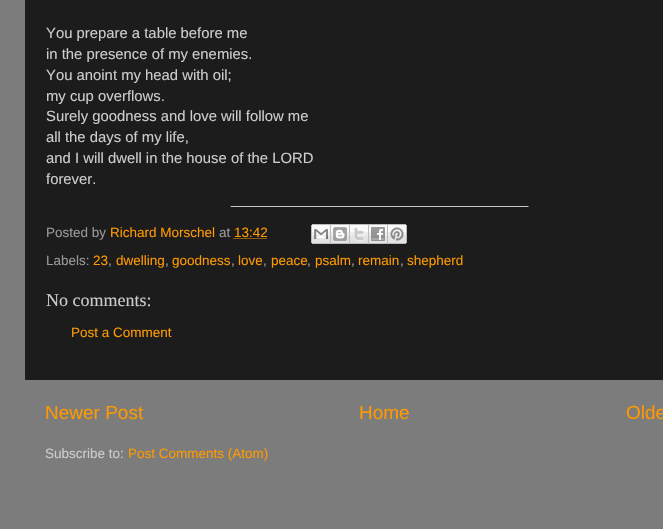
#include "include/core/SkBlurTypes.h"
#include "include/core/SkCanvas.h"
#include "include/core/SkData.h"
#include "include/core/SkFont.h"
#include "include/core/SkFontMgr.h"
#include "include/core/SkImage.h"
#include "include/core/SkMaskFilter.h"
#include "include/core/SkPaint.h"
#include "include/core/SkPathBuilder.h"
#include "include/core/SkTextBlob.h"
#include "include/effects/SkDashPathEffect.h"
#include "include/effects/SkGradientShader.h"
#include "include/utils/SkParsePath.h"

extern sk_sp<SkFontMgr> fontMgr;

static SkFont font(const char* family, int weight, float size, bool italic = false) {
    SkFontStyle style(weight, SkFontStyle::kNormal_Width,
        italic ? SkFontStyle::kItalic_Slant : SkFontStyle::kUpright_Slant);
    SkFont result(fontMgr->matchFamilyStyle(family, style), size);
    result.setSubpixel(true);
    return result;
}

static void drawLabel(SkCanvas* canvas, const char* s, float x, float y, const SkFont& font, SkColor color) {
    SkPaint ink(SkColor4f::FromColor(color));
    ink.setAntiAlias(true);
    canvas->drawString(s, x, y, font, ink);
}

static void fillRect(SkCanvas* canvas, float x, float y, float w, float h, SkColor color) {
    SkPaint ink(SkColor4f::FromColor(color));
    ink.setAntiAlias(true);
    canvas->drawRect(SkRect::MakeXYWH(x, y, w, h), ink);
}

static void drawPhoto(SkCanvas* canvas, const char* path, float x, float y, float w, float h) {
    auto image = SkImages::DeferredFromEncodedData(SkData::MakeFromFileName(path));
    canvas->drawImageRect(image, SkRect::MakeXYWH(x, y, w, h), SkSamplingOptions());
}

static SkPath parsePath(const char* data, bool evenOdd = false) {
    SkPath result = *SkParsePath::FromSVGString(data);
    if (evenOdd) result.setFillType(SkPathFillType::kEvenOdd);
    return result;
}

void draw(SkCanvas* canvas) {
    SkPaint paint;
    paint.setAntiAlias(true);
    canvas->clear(0xFF7C7C7C);
    fillRect(canvas, 25, 0, 638, 380, 0xFF1C1C1C);
    SkFont font1 = font("Liberation Sans", 400, 14.85f);
    drawLabel(canvas, "You prepare a table before me", 46, 38, font1, 0xFFCCCCCC);
    drawLabel(canvas, "in the presence of my enemies.", 46, 59, font1, 0xFFCCCCCC);
    drawLabel(canvas, "You anoint my head with oil;", 46, 80, font1, 0xFFCCCCCC);
    drawLabel(canvas, "my cup overflows.", 46, 101, font1, 0xFFCCCCCC);
    drawLabel(canvas, "Surely goodness and love will follow me", 46, 121, font1, 0xFFCCCCCC);
    drawLabel(canvas, "all the days of my life,", 46, 142, font1, 0xFFCCCCCC);
    drawLabel(canvas, "and I will dwell in the house of the LORD", 46, 163, font1, 0xFFCCCCCC);
    drawLabel(canvas, "forever.", 46, 184, font1, 0xFFCCCCCC);
    drawLabel(canvas, "____________________________________", 231, 204, font1, 0xFFCCCCCC);
    SkFont font2 = font("Liberation Sans", 400, 13.5f);
    drawLabel(canvas, "Posted by", 46, 237, font2, 0xFF999999);
    drawLabel(canvas, "Richard Morschel", 110, 237, font2, 0xFFFF9900);
    drawLabel(canvas, "at", 219, 237, font2, 0xFF999999);
    drawLabel(canvas, "13:42", 234, 237, font2, 0xFFFF9900);
    paint.setStroke(true);
    paint.setStrokeWidth(1);
    paint.setColor(0xFFFF9900);
    paint.setPathEffect(SkDashPathEffect::Make({{1, 1}}, 0));
    canvas->drawPath(parsePath("M233.5 238.5H267.5"), paint);
    paint.setPathEffect(nullptr);
    drawPhoto(canvas, "assets/img1.png", 311, 224, 20, 20);
    drawPhoto(canvas, "assets/img2.png", 331, 224, 19, 20);
    drawPhoto(canvas, "assets/img3.png", 350, 224, 19, 20);
    drawPhoto(canvas, "assets/img4.png", 369, 224, 19, 20);
    drawPhoto(canvas, "assets/img5.png", 388, 224, 19, 20);
    drawLabel(canvas, "Labels:", 46, 265, font2, 0xFF999999);
    drawLabel(canvas, "23", 93, 265, font2, 0xFFFF9900);
    drawLabel(canvas, ",", 108, 265, font2, 0xFF999999);
    drawLabel(canvas, "dwelling", 116, 265, font2, 0xFFFF9900);
    drawLabel(canvas, ",", 165, 265, font2, 0xFF999999);
    drawLabel(canvas, "goodness", 172, 265, font2, 0xFFFF9900);
    drawLabel(canvas, ",", 231, 265, font2, 0xFF999999);
    drawLabel(canvas, "love", 238, 265, font2, 0xFFFF9900);
    drawLabel(canvas, ",", 263, 265, font2, 0xFF999999);
    drawLabel(canvas, "peace", 271, 265, font2, 0xFFFF9900);
    drawLabel(canvas, ",", 307, 265, font2, 0xFF999999);
    drawLabel(canvas, "psalm", 315, 265, font2, 0xFFFF9900);
    drawLabel(canvas, ",", 351, 265, font2, 0xFF999999);
    drawLabel(canvas, "remain", 358, 265, font2, 0xFFFF9900);
    drawLabel(canvas, ",", 400, 265, font2, 0xFF999999);
    drawLabel(canvas, "shepherd", 407, 265, font2, 0xFFFF9900);
    SkFont font3 = font("Liberation Serif", 400, 18);
    drawLabel(canvas, "No comments:", 46, 306, font3, 0xFFCCCCCC);
    drawLabel(canvas, "Post a Comment", 71, 337, font2, 0xFFFF9900);
    SkFont font4 = font("Liberation Sans", 400, 19);
    drawLabel(canvas, "Newer Post", 45, 419, font4, 0xFFFF9900);
    drawLabel(canvas, "Home", 359, 419, font4, 0xFFFF9900);
    drawLabel(canvas, "Olde", 626, 419, font4, 0xFFFF9900);
    drawLabel(canvas, "Subscribe to:", 45, 458, font2, 0xFFCCCCCC);
    drawLabel(canvas, "Post Comments (Atom)", 128, 458, font2, 0xFFFF9900);
}
